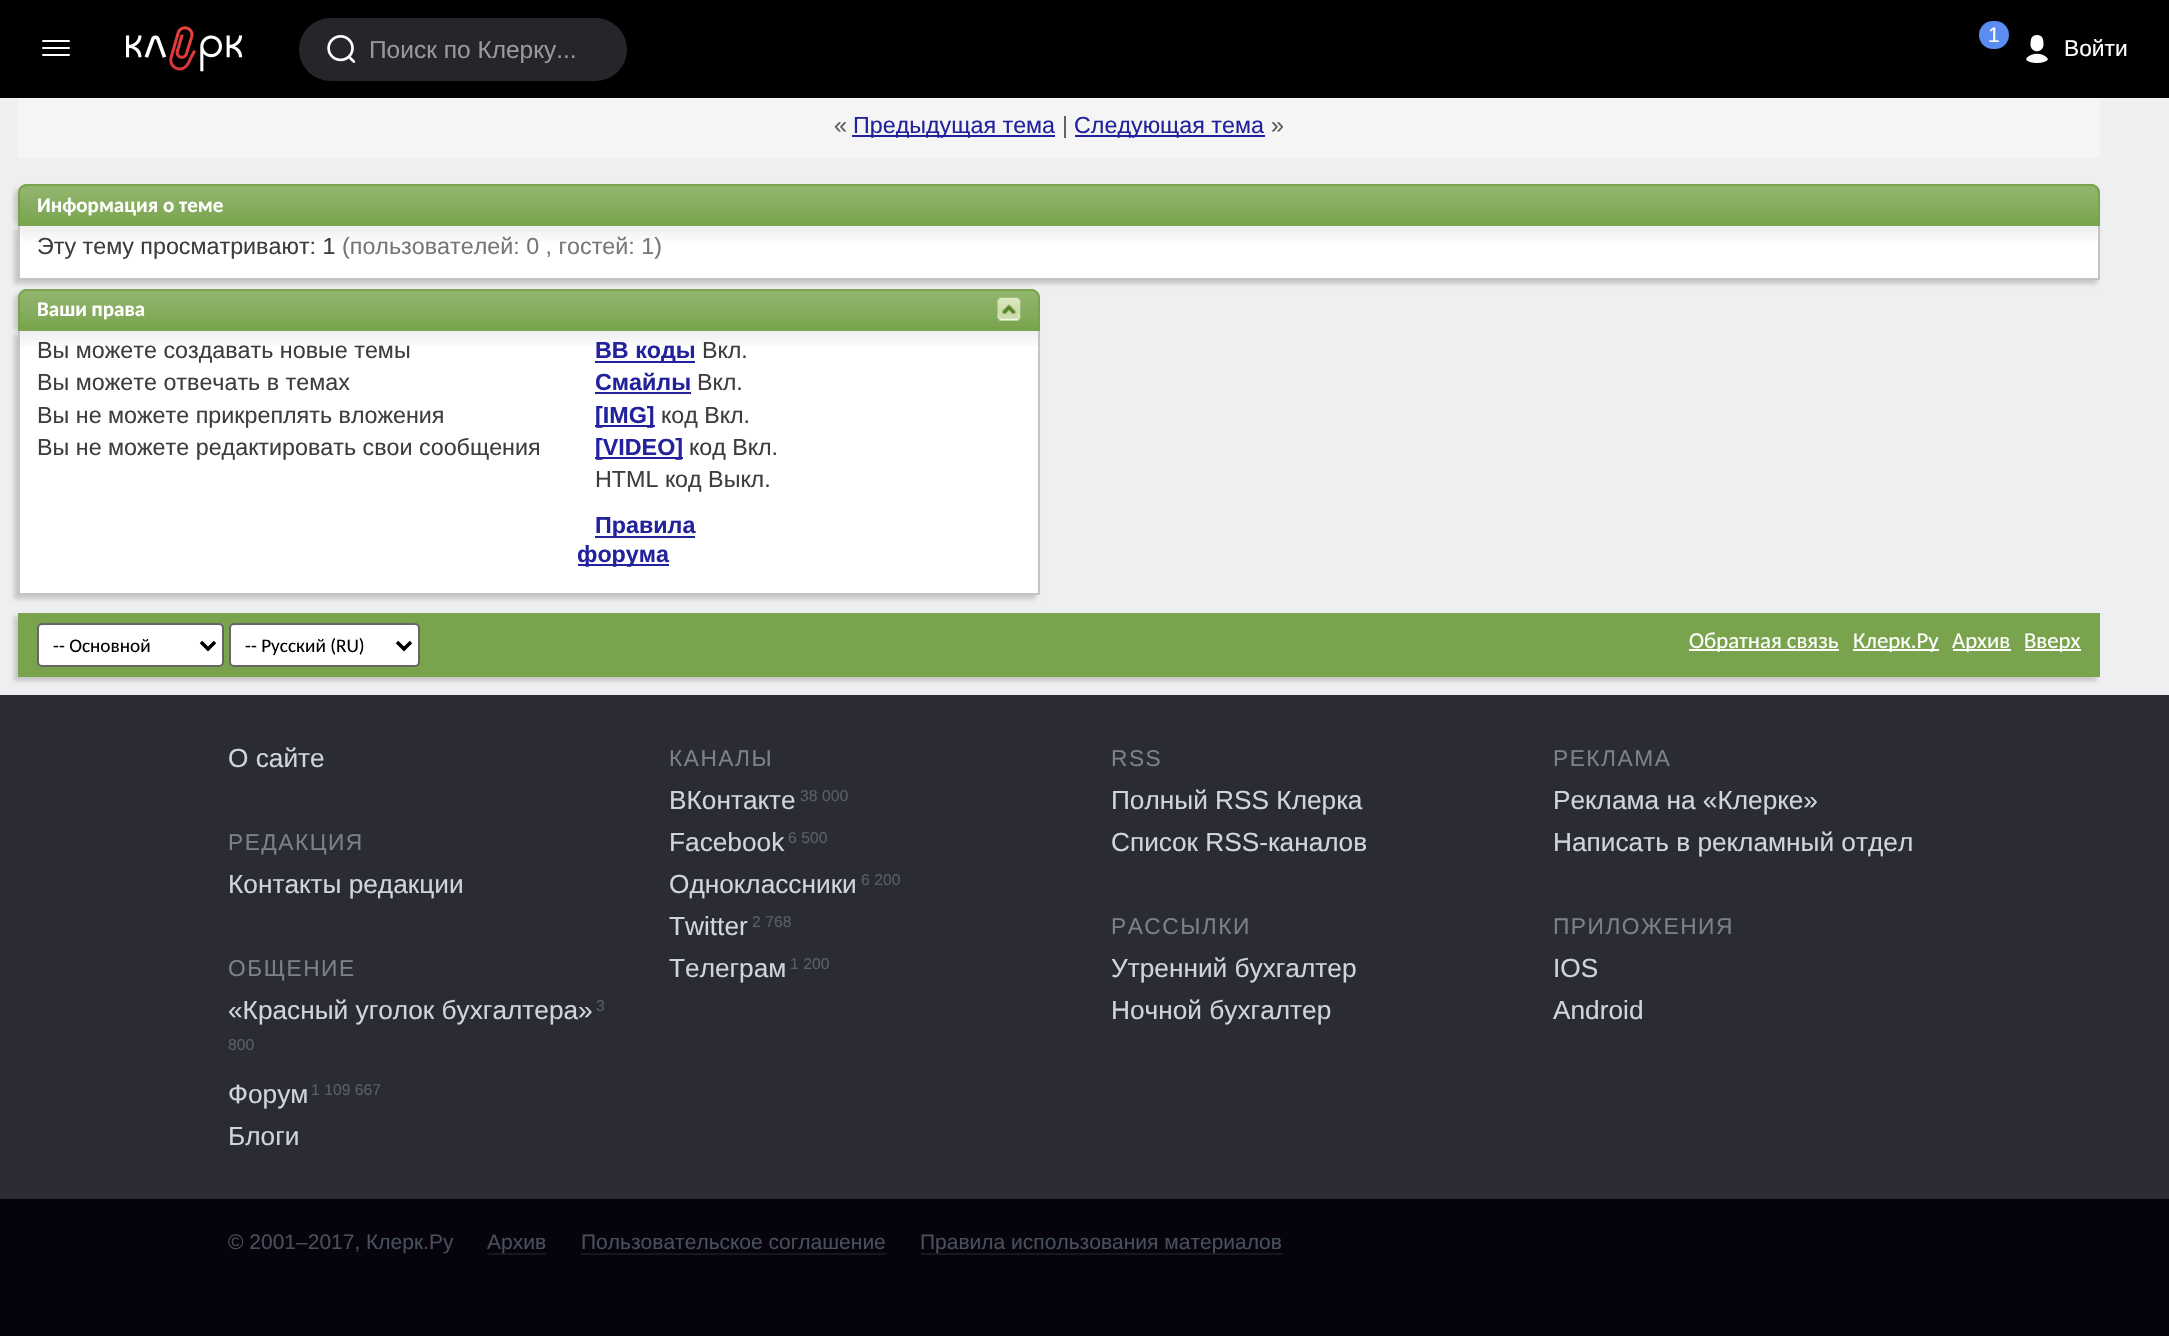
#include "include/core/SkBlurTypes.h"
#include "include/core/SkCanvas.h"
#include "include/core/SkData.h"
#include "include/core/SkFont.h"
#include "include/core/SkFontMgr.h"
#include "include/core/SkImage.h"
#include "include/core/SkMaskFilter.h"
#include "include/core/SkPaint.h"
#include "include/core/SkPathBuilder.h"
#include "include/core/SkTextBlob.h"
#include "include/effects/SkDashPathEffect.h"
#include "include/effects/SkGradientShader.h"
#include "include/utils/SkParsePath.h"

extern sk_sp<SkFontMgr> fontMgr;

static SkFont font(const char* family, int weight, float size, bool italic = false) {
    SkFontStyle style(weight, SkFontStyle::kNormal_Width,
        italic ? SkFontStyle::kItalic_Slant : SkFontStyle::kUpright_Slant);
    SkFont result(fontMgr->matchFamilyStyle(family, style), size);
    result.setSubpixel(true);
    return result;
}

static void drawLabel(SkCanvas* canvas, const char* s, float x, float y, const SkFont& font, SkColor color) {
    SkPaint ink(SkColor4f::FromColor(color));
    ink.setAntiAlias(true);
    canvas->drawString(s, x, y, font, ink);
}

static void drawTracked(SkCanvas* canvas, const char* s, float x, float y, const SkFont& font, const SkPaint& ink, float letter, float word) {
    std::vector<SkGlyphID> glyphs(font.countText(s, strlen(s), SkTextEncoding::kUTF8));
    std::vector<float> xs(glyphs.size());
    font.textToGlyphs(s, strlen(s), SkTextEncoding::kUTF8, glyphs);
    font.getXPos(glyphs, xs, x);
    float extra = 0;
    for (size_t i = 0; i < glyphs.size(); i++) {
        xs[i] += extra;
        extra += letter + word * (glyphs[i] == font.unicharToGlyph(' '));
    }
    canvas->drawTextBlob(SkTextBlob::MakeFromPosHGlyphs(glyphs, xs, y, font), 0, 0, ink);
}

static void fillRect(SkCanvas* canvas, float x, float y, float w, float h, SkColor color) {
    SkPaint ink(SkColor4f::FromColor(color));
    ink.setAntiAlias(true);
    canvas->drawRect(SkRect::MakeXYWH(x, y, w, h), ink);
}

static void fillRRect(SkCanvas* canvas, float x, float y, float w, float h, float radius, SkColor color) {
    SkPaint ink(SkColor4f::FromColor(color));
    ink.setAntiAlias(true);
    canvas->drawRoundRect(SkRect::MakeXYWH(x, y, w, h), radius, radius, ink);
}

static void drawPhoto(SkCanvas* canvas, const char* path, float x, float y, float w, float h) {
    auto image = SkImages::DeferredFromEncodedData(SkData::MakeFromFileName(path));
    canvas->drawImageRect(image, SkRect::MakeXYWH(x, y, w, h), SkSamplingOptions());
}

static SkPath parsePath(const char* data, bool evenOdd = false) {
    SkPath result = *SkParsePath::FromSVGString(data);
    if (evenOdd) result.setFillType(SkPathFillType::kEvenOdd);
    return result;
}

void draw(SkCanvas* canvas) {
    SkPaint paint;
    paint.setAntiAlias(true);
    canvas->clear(0xFFEEEFF1);
    fillRect(canvas, 0, 0, 2169, 98, 0xFF000000);
    fillRRect(canvas, 42, 40, 28, 2, 1, 0xFFFFFFFF);
    fillRRect(canvas, 42, 47, 28, 2, 1, 0xFFFFFFFF);
    fillRRect(canvas, 42, 54, 28, 2, 1, 0xFFFFFFFF);
    drawPhoto(canvas, "assets/img1.png", 126, 26, 117, 46);
    fillRRect(canvas, 299, 18, 328, 63, 31.5f, 0xFF26252C);
    drawPhoto(canvas, "assets/img2.png", 327, 35, 28, 28);
    SkFont font1 = font("Liberation Sans", 400, 24.5f);
    drawLabel(canvas, "Поиск по Клерку...", 369, 58, font1, 0xFF999999);
    fillRRect(canvas, 1979, 21, 30, 28, 14, 0xFF5A8CF1);
    SkFont font2 = font("Liberation Sans", 400, 21);
    drawLabel(canvas, "1", 1988, 42, font2, 0xFFFFFFFF);
    drawPhoto(canvas, "assets/img3.png", 2026, 35, 22, 28);
    SkFont font3 = font("Liberation Sans", 400, 22.75f);
    drawLabel(canvas, "Войти", 2064, 56, font3, 0xFFFFFFFF);
    fillRect(canvas, 18, 98, 2082, 60, 0xFFF5F5F5);
    SkFont font4 = font("Liberation Sans", 400, 23.3f);
    drawLabel(canvas, "«", 834, 133, font4, 0xFF5D5D5D);
    fillRect(canvas, 852, 135, 203, 2, 0xFF22229C);
    drawLabel(canvas, "Предыдущая тема", 853, 133, font4, 0xFF22229C);
    drawLabel(canvas, "|", 1062, 133, font4, 0xFF5D5D5D);
    fillRect(canvas, 1075, 135, 190, 2, 0xFF22229C);
    drawLabel(canvas, "Следующая тема", 1074, 133, font4, 0xFF22229C);
    drawLabel(canvas, "»", 1271, 133, font4, 0xFF5D5D5D);
    paint.setColor(0xFFC8C8C8);
    paint.setMaskFilter(SkMaskFilter::MakeBlur(kNormal_SkBlurStyle, 2));
    canvas->drawRoundRect(SkRect::MakeXYWH(14, 187, 2083, 42), 9, 9, paint);
    paint.setMaskFilter(nullptr);
    paint.setColor(0xFF79A44D);
    canvas->drawPath(parsePath("M27 184H2091C2096 184 2100 188 2100 193V226H18V193C18 188 22 184 27 184Z"), paint);
    drawPhoto(canvas, "assets/img4.png", 18, 185, 2082, 36);
    paint.setStroke(true);
    paint.setStrokeWidth(2);
    canvas->drawPath(parsePath("M27 185H2091C2095.5 185 2099 188.5 2099 193V225H19V193C19 188.5 22.5 185 27 185Z"), paint);
    SkFont font5 = font("Carlito", 700, 21);
    drawLabel(canvas, "Информация о теме", 37, 212, font5, 0xFFFFFFFF);
    paint.setStroke(false);
    paint.setColor(0xFFC8C8C8);
    paint.setMaskFilter(SkMaskFilter::MakeBlur(kNormal_SkBlurStyle, 2));
    canvas->drawRect(SkRect::MakeXYWH(14, 229, 2083, 55), paint);
    paint.setMaskFilter(nullptr);
    fillRect(canvas, 20, 226, 2078, 52, 0xFFFFFFFF);
    drawPhoto(canvas, "assets/img5.png", 20, 226, 2078, 15);
    fillRect(canvas, 2098, 226, 2, 54, 0xFFC4C4C4);
    fillRect(canvas, 18, 278, 2082, 2, 0xFFC4C4C4);
    fillRect(canvas, 18, 226, 2, 54, 0xFFC4C4C4);
    drawLabel(canvas, "Эту тему просматривают: 1", 37, 254, font4, 0xFF3E3E3E);
    drawLabel(canvas, "(пользователей: 0 , гостей: 1)", 342, 254, font4, 0xFF777777);
    paint.setMaskFilter(SkMaskFilter::MakeBlur(kNormal_SkBlurStyle, 2));
    canvas->drawRoundRect(SkRect::MakeXYWH(14, 292, 1022, 42), 9, 9, paint);
    paint.setMaskFilter(nullptr);
    paint.setColor(0xFF79A44D);
    canvas->drawPath(parsePath("M27 289H1031C1036 289 1040 293 1040 298V331H18V298C18 293 22 289 27 289Z"), paint);
    drawPhoto(canvas, "assets/img6.png", 18, 290, 1022, 36);
    paint.setStroke(true);
    canvas->drawPath(parsePath("M27 290H1031C1035.5 290 1039 293.5 1039 298V330H19V298C19 293.5 22.5 290 27 290Z"), paint);
    drawLabel(canvas, "Ваши права", 37, 316, font5, 0xFFFFFFFF);
    drawPhoto(canvas, "assets/img7.png", 997, 297, 24, 24);
    paint.setStroke(false);
    paint.setColor(0xFFC8C8C8);
    paint.setMaskFilter(SkMaskFilter::MakeBlur(kNormal_SkBlurStyle, 2));
    canvas->drawRect(SkRect::MakeXYWH(14, 334, 1022, 265), paint);
    paint.setMaskFilter(nullptr);
    fillRect(canvas, 20, 331, 1018, 262, 0xFFFFFFFF);
    drawPhoto(canvas, "assets/img8.png", 20, 331, 1018, 15);
    fillRect(canvas, 1038, 331, 2, 264, 0xFFC4C4C4);
    fillRect(canvas, 18, 593, 1022, 2, 0xFFC4C4C4);
    fillRect(canvas, 18, 331, 2, 264, 0xFFC4C4C4);
    drawLabel(canvas, "Вы можете создавать новые темы", 37, 358, font4, 0xFF3E3E3E);
    drawLabel(canvas, "Вы можете отвечать в темах", 37, 390, font4, 0xFF3E3E3E);
    drawLabel(canvas, "Вы не можете прикреплять вложения", 37, 423, font4, 0xFF3E3E3E);
    drawLabel(canvas, "Вы не можете редактировать свои сообщения", 37, 455, font4, 0xFF3E3E3E);
    fillRect(canvas, 595, 361, 100, 2, 0xFF22229C);
    SkFont font6 = font("Liberation Sans", 700, 23.3f);
    drawLabel(canvas, "BB коды", 595, 358, font6, 0xFF22229C);
    drawLabel(canvas, "Вкл.", 702, 358, font4, 0xFF3E3E3E);
    drawLabel(canvas, "Смайлы", 595, 390, font6, 0xFF22229C);
    fillRect(canvas, 595, 392, 96, 2, 0xFF22229C);
    drawLabel(canvas, "Вкл.", 697, 390, font4, 0xFF3E3E3E);
    fillRect(canvas, 595, 425, 60, 2, 0xFF22229C);
    drawLabel(canvas, "[IMG]", 595, 423, font6, 0xFF22229C);
    drawLabel(canvas, "код Вкл.", 661, 423, font4, 0xFF3E3E3E);
    fillRect(canvas, 595, 457, 88, 2, 0xFF22229C);
    drawLabel(canvas, "[VIDEO]", 595, 455, font6, 0xFF22229C);
    drawLabel(canvas, "код Вкл.", 689, 455, font4, 0xFF3E3E3E);
    drawLabel(canvas, "HTML код Выкл.", 595, 487, font4, 0xFF3E3E3E);
    fillRect(canvas, 595, 536, 100, 2, 0xFF22229C);
    drawLabel(canvas, "Правила", 595, 533, font6, 0xFF22229C);
    fillRect(canvas, 578, 564, 91, 2, 0xFF22229C);
    drawLabel(canvas, "форума", 577, 562, font6, 0xFF22229C);
    paint.setMaskFilter(SkMaskFilter::MakeBlur(kNormal_SkBlurStyle, 2));
    canvas->drawRect(SkRect::MakeXYWH(14, 616, 2083, 65), paint);
    paint.setMaskFilter(nullptr);
    fillRect(canvas, 18, 613, 2082, 64, 0xFF79A44D);
    paint.setColor(0xFFFFFFFF);
    canvas->drawRoundRect(SkRect::MakeXYWH(38, 624, 185, 42), 4, 4, paint);
    paint.setStroke(true);
    paint.setColor(0xFF666666);
    canvas->drawRoundRect(SkRect::MakeXYWH(38, 624, 185, 42), 4, 4, paint);
    paint.setStrokeWidth(3.5f);
    paint.setColor(0xFF000000);
    canvas->drawPath(parsePath("M201 642L208 649L215 642"), paint);
    SkFont font7 = font("Carlito", 400, 19.25f);
    drawLabel(canvas, "-- Основной", 53, 652, font7, 0xFF000000);
    paint.setStroke(false);
    paint.setColor(0xFFFFFFFF);
    canvas->drawRoundRect(SkRect::MakeXYWH(230, 624, 189, 42), 4, 4, paint);
    paint.setStroke(true);
    paint.setStrokeWidth(2);
    paint.setColor(0xFF666666);
    canvas->drawRoundRect(SkRect::MakeXYWH(230, 624, 189, 42), 4, 4, paint);
    paint.setStrokeWidth(3.5f);
    paint.setColor(0xFF000000);
    canvas->drawPath(parsePath("M397 642L404 649L411 642"), paint);
    drawLabel(canvas, "-- Русский (RU)", 245, 652, font7, 0xFF000000);
    fillRect(canvas, 1689, 649, 150, 2, 0xFFFFFFFF);
    SkFont font8 = font("Carlito", 400, 22.75f);
    drawLabel(canvas, "Обратная связь", 1689, 648, font8, 0xFFFFFFFF);
    fillRect(canvas, 1853, 649, 86, 2, 0xFFFFFFFF);
    drawLabel(canvas, "Клерк.Ру", 1853, 648, font8, 0xFFFFFFFF);
    fillRect(canvas, 1953, 649, 58, 2, 0xFFFFFFFF);
    drawLabel(canvas, "Архив", 1952, 648, font8, 0xFFFFFFFF);
    fillRect(canvas, 2025, 649, 56, 2, 0xFFFFFFFF);
    drawLabel(canvas, "Вверх", 2024, 648, font8, 0xFFFFFFFF);
    fillRect(canvas, 0, 695, 2169, 504, 0xFF2A2B35);
    SkFont font9 = font("Liberation Sans", 400, 26.25f);
    drawLabel(canvas, "О сайте", 228, 767, font9, 0xFFD1D5DA);
    paint.setStroke(false);
    paint.setColor(0xFF7E8088);
    drawTracked(canvas, "РЕДАКЦИЯ", 228, 850, font3, paint, 1.5f, 0);
    drawLabel(canvas, "Контакты редакции", 228, 893, font9, 0xFFD1D5DA);
    drawTracked(canvas, "ОБЩЕНИЕ", 228, 976, font3, paint, 1.5f, 0);
    drawLabel(canvas, "«Красный уголок бухгалтера»", 228, 1019, font9, 0xFFD1D5DA);
    SkFont font10 = font("Liberation Sans", 400, 15.75f);
    drawLabel(canvas, "3", 596, 1011, font10, 0xFF5C5E67);
    drawLabel(canvas, "800", 228, 1050, font10, 0xFF5C5E67);
    drawLabel(canvas, "Форум", 228, 1103, font9, 0xFFD1D5DA);
    drawLabel(canvas, "1 109 667", 311, 1095, font10, 0xFF5C5E67);
    drawLabel(canvas, "Блоги", 228, 1145, font9, 0xFFD1D5DA);
    drawTracked(canvas, "КАНАЛЫ", 669, 766, font3, paint, 1.5f, 0);
    drawLabel(canvas, "ВКонтакте", 669, 809, font9, 0xFFD1D5DA);
    drawLabel(canvas, "38 000", 800, 801, font10, 0xFF5C5E67);
    drawLabel(canvas, "Facebook", 669, 851, font9, 0xFFD1D5DA);
    drawLabel(canvas, "6 500", 788, 843, font10, 0xFF5C5E67);
    drawLabel(canvas, "Одноклассники", 669, 893, font9, 0xFFD1D5DA);
    drawLabel(canvas, "6 200", 861, 885, font10, 0xFF5C5E67);
    drawLabel(canvas, "Twitter", 669, 935, font9, 0xFFD1D5DA);
    drawLabel(canvas, "2 768", 752, 927, font10, 0xFF5C5E67);
    drawLabel(canvas, "Телеграм", 669, 977, font9, 0xFFD1D5DA);
    drawLabel(canvas, "1 200", 790, 969, font10, 0xFF5C5E67);
    drawTracked(canvas, "RSS", 1111, 766, font3, paint, 1.5f, 0);
    drawLabel(canvas, "Полный RSS Клерка", 1111, 809, font9, 0xFFD1D5DA);
    drawLabel(canvas, "Список RSS-каналов", 1111, 851, font9, 0xFFD1D5DA);
    drawTracked(canvas, "РАССЫЛКИ", 1111, 934, font3, paint, 1.5f, 0);
    drawLabel(canvas, "Утренний бухгалтер", 1111, 977, font9, 0xFFD1D5DA);
    drawLabel(canvas, "Ночной бухгалтер", 1111, 1019, font9, 0xFFD1D5DA);
    drawTracked(canvas, "РЕКЛАМА", 1553, 766, font3, paint, 1.5f, 0);
    drawLabel(canvas, "Реклама на «Клерке»", 1553, 809, font9, 0xFFD1D5DA);
    drawLabel(canvas, "Написать в рекламный отдел", 1553, 851, font9, 0xFFD1D5DA);
    drawTracked(canvas, "ПРИЛОЖЕНИЯ", 1553, 934, font3, paint, 1.5f, 0);
    drawLabel(canvas, "IOS", 1553, 977, font9, 0xFFD1D5DA);
    drawLabel(canvas, "Android", 1553, 1019, font9, 0xFFD1D5DA);
    fillRect(canvas, 0, 1199, 2169, 137, 0xFF07030E);
    drawLabel(canvas, "© 2001–2017, Клерк.Ру", 228, 1249, font2, 0xFF475059);
    fillRect(canvas, 488, 1253, 58, 2, 0xFF171620);
    drawLabel(canvas, "Архив", 487, 1249, font2, 0xFF475059);
    drawLabel(canvas, "Пользовательское соглашение", 581, 1249, font2, 0xFF475059);
    fillRect(canvas, 581, 1253, 305, 2, 0xFF171620);
    fillRect(canvas, 921, 1253, 362, 2, 0xFF171620);
    drawLabel(canvas, "Правила использования материалов", 920, 1249, font2, 0xFF475059);
}
